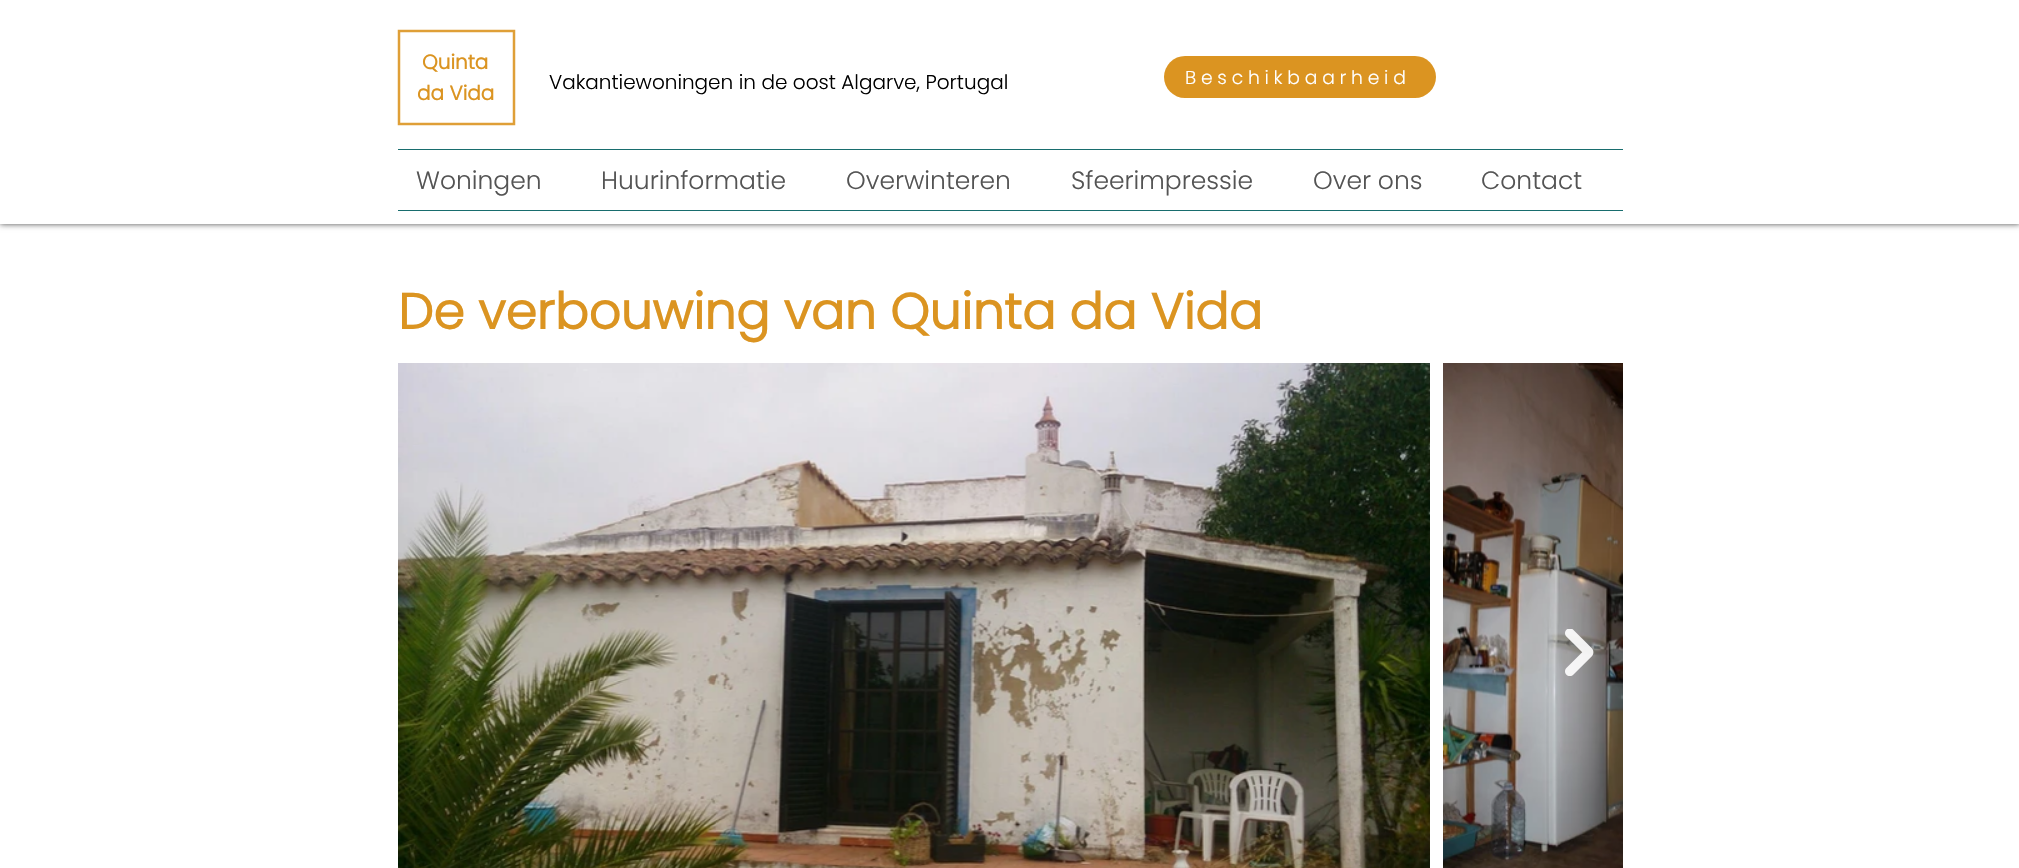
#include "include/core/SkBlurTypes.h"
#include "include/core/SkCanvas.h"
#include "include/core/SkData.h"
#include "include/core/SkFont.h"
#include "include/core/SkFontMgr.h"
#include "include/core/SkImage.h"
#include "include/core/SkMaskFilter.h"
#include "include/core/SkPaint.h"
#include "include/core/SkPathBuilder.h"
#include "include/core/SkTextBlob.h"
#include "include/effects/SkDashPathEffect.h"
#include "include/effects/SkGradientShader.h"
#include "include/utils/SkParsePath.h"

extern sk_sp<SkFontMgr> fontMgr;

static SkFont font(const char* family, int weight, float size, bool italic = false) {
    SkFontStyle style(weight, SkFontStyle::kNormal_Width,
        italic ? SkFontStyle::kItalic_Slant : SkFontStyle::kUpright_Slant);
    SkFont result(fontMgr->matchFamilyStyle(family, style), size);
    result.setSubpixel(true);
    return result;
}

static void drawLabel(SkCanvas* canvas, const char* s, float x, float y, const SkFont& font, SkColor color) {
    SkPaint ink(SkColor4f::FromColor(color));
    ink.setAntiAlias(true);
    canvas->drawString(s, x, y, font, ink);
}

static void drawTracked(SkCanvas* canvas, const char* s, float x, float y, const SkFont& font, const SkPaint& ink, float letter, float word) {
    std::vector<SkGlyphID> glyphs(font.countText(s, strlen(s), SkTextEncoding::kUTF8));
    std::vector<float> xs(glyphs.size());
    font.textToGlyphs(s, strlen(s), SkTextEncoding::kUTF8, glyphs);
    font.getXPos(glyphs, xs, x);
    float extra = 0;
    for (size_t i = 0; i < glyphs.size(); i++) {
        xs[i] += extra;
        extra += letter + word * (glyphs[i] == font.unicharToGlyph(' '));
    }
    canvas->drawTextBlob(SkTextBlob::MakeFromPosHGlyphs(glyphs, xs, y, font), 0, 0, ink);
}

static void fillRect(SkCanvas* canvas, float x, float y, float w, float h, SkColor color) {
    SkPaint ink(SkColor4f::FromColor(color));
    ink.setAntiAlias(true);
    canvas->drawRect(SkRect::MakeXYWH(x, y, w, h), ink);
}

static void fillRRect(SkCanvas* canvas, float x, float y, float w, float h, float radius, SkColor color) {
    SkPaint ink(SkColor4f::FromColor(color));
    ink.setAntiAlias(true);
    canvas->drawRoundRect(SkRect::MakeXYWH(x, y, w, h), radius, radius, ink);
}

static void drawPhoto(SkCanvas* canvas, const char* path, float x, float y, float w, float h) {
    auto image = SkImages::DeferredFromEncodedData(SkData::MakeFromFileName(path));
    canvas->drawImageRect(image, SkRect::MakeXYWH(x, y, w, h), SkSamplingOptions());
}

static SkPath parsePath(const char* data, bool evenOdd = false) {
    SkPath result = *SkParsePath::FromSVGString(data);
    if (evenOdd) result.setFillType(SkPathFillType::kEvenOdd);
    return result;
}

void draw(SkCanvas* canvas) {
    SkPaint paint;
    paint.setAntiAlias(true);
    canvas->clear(0xFFFFFFFF);
    canvas->save();
    canvas->clipPath(parsePath("M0 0H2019V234H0ZM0 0H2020V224H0Z", true), true);
    paint.setColor(0xB3000000);
    paint.setMaskFilter(SkMaskFilter::MakeBlur(kNormal_SkBlurStyle, 3));
    canvas->drawRect(SkRect::MakeXYWH(0, 0, 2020, 224), paint);
    paint.setMaskFilter(nullptr);
    canvas->restore();
    fillRect(canvas, 0, 223, 2019, 1, 0xE6FFFFFF);
    paint.setStroke(true);
    paint.setStrokeWidth(2.5f);
    paint.setColor(0xFFDF9F37);
    canvas->drawPath(parsePath("M514 31V124H399V31Z"), paint);
    SkFont font1 = font("Poppins", 700, 20);
    drawLabel(canvas, "Quinta", 422, 69, font1, 0xFFDB9421);
    drawLabel(canvas, "da Vida", 417, 100, font1, 0xFFDB9421);
    SkFont font2 = font("Poppins", 300, 20);
    drawLabel(canvas, "Vakantiewoningen in de oost Algarve, Portugal", 549, 89, font2, 0xFF000000);
    fillRRect(canvas, 1164, 56, 272, 42, 21, 0xFFDB9421);
    SkFont font3 = font("Poppins", 300, 18.75f);
    paint.setStroke(false);
    paint.setColor(0xFFFFFFFF);
    drawTracked(canvas, "Beschikbaarheid", 1185, 84, font3, paint, 4.75f, 0);
    fillRect(canvas, 398, 149, 1225, 1, 0xFF186D6E);
    fillRect(canvas, 398, 210, 1225, 1, 0xFF186D6E);
    SkFont font4 = font("Poppins", 300, 25);
    drawLabel(canvas, "Woningen", 416, 189, font4, 0xFF545454);
    drawLabel(canvas, "Huurinformatie", 601, 189, font4, 0xFF545454);
    drawLabel(canvas, "Overwinteren", 846, 189, font4, 0xFF545454);
    drawLabel(canvas, "Sfeerimpressie", 1071, 189, font4, 0xFF545454);
    drawLabel(canvas, "Over ons", 1313, 189, font4, 0xFF545454);
    drawLabel(canvas, "Contact", 1481, 189, font4, 0xFF545454);
    SkFont font5 = font("Poppins", 700, 50);
    drawLabel(canvas, "De verbouwing van Quinta da Vida", 398, 329, font5, 0xFFDB9421);
    drawPhoto(canvas, "assets/img1.png", 398, 363, 1032, 505);
    drawPhoto(canvas, "assets/img2.png", 1443, 363, 180, 505);
    drawPhoto(canvas, "assets/img3.png", 1565, 629, 29, 47);
}
